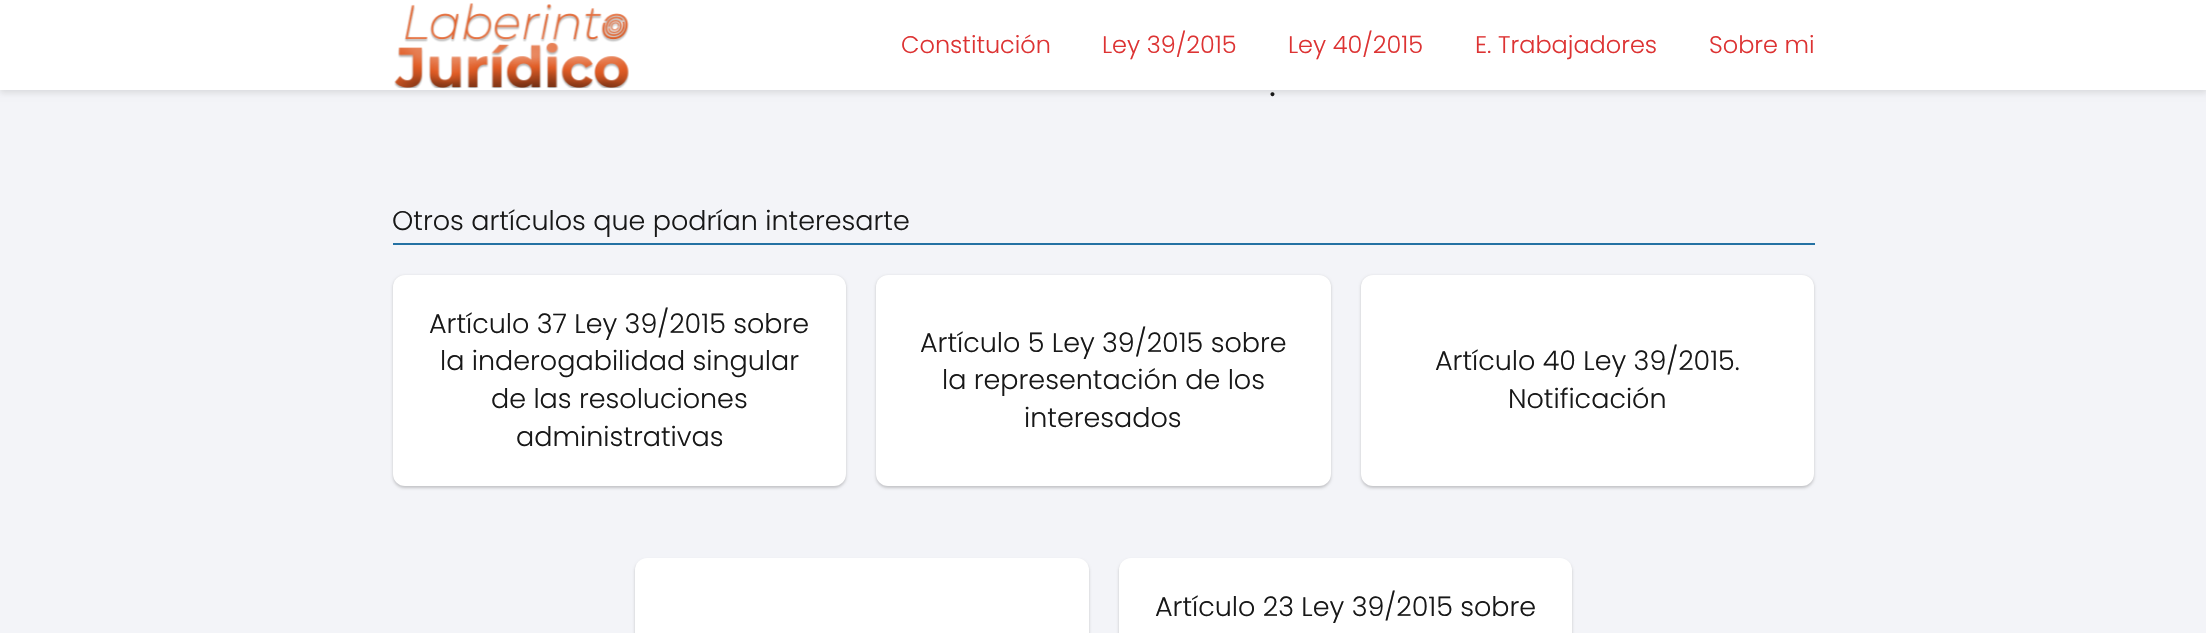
#include "include/core/SkBlurTypes.h"
#include "include/core/SkCanvas.h"
#include "include/core/SkData.h"
#include "include/core/SkFont.h"
#include "include/core/SkFontMgr.h"
#include "include/core/SkImage.h"
#include "include/core/SkMaskFilter.h"
#include "include/core/SkPaint.h"
#include "include/core/SkPathBuilder.h"
#include "include/core/SkTextBlob.h"
#include "include/effects/SkDashPathEffect.h"
#include "include/effects/SkGradientShader.h"
#include "include/utils/SkParsePath.h"

extern sk_sp<SkFontMgr> fontMgr;

static SkFont font(const char* family, int weight, float size, bool italic = false) {
    SkFontStyle style(weight, SkFontStyle::kNormal_Width,
        italic ? SkFontStyle::kItalic_Slant : SkFontStyle::kUpright_Slant);
    SkFont result(fontMgr->matchFamilyStyle(family, style), size);
    result.setSubpixel(true);
    return result;
}

static void drawLabel(SkCanvas* canvas, const char* s, float x, float y, const SkFont& font, SkColor color) {
    SkPaint ink(SkColor4f::FromColor(color));
    ink.setAntiAlias(true);
    canvas->drawString(s, x, y, font, ink);
}

static void fillRect(SkCanvas* canvas, float x, float y, float w, float h, SkColor color) {
    SkPaint ink(SkColor4f::FromColor(color));
    ink.setAntiAlias(true);
    canvas->drawRect(SkRect::MakeXYWH(x, y, w, h), ink);
}

static void fillRRect(SkCanvas* canvas, float x, float y, float w, float h, float radius, SkColor color) {
    SkPaint ink(SkColor4f::FromColor(color));
    ink.setAntiAlias(true);
    canvas->drawRoundRect(SkRect::MakeXYWH(x, y, w, h), radius, radius, ink);
}

static void drawPhoto(SkCanvas* canvas, const char* path, float x, float y, float w, float h) {
    auto image = SkImages::DeferredFromEncodedData(SkData::MakeFromFileName(path));
    canvas->drawImageRect(image, SkRect::MakeXYWH(x, y, w, h), SkSamplingOptions());
}

void draw(SkCanvas* canvas) {
    SkPaint paint;
    paint.setAntiAlias(true);
    canvas->clear(0xFFF3F4F8);
    paint.setColor(0x1A000000);
    paint.setMaskFilter(SkMaskFilter::MakeBlur(kNormal_SkBlurStyle, 3));
    canvas->drawRect(SkRect::MakeXYWH(0, 3, 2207, 90), paint);
    paint.setMaskFilter(nullptr);
    fillRect(canvas, 0, 0, 2206, 90, 0xFFFFFFFF);
    drawPhoto(canvas, "assets/img1.png", 394, 3, 235, 86);
    SkFont font1 = font("Poppins", 300, 24);
    drawLabel(canvas, "Constitución", 901, 53, font1, 0xFFDD3333);
    drawLabel(canvas, "Ley 39/2015", 1102, 53, font1, 0xFFDD3333);
    drawLabel(canvas, "Ley 40/2015", 1288, 53, font1, 0xFFDD3333);
    drawLabel(canvas, "E. Trabajadores", 1475, 53, font1, 0xFFDD3333);
    drawLabel(canvas, "Sobre mi", 1709, 53, font1, 0xFFDD3333);
    SkFont font2 = font("Poppins", 300, 38);
    drawLabel(canvas, ".", 1269, 96, font2, 0xFF181818);
    fillRect(canvas, 393, 243, 1422, 2, 0xFF2471A3);
    SkFont font3 = font("Poppins", 300, 27);
    drawLabel(canvas, "Otros artículos que podrían interesarte", 392, 230, font3, 0xFF181818);
    paint.setColor(0x33000000);
    paint.setMaskFilter(SkMaskFilter::MakeBlur(kNormal_SkBlurStyle, 1.5f));
    canvas->drawRoundRect(SkRect::MakeXYWH(393, 276, 453, 212), 12, 12, paint);
    paint.setMaskFilter(nullptr);
    fillRRect(canvas, 393, 275, 453, 211, 12, 0xFFFFFFFF);
    drawLabel(canvas, "Artículo 37 Ley 39/2015 sobre", 429, 333, font3, 0xFF181818);
    drawLabel(canvas, "la inderogabilidad singular", 440, 370, font3, 0xFF181818);
    drawLabel(canvas, "de las resoluciones", 491, 408, font3, 0xFF181818);
    drawLabel(canvas, "administrativas", 516, 446, font3, 0xFF181818);
    paint.setMaskFilter(SkMaskFilter::MakeBlur(kNormal_SkBlurStyle, 1.5f));
    canvas->drawRoundRect(SkRect::MakeXYWH(876, 276, 455, 212), 12, 12, paint);
    paint.setMaskFilter(nullptr);
    fillRRect(canvas, 876, 275, 455, 211, 12, 0xFFFFFFFF);
    drawLabel(canvas, "Artículo 5 Ley 39/2015 sobre", 920, 352, font3, 0xFF181818);
    drawLabel(canvas, "la representación de los", 942, 389, font3, 0xFF181818);
    drawLabel(canvas, "interesados", 1024, 427, font3, 0xFF181818);
    paint.setMaskFilter(SkMaskFilter::MakeBlur(kNormal_SkBlurStyle, 1.5f));
    canvas->drawRoundRect(SkRect::MakeXYWH(1361, 276, 453, 212), 12, 12, paint);
    paint.setMaskFilter(nullptr);
    fillRRect(canvas, 1361, 275, 453, 211, 12, 0xFFFFFFFF);
    drawLabel(canvas, "Artículo 40 Ley 39/2015.", 1435, 370, font3, 0xFF181818);
    drawLabel(canvas, "Notificación", 1508, 408, font3, 0xFF181818);
    paint.setMaskFilter(SkMaskFilter::MakeBlur(kNormal_SkBlurStyle, 1.5f));
    canvas->drawRoundRect(SkRect::MakeXYWH(635, 560, 454, 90), 12, 12, paint);
    paint.setMaskFilter(nullptr);
    fillRRect(canvas, 635, 558, 454, 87, 12, 0xFFFFFFFF);
    paint.setMaskFilter(SkMaskFilter::MakeBlur(kNormal_SkBlurStyle, 1.5f));
    canvas->drawRoundRect(SkRect::MakeXYWH(1119, 560, 453, 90), 12, 12, paint);
    paint.setMaskFilter(nullptr);
    fillRRect(canvas, 1119, 558, 453, 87, 12, 0xFFFFFFFF);
    drawLabel(canvas, "Artículo 23 Ley 39/2015 sobre", 1155, 616, font3, 0xFF181818);
}
